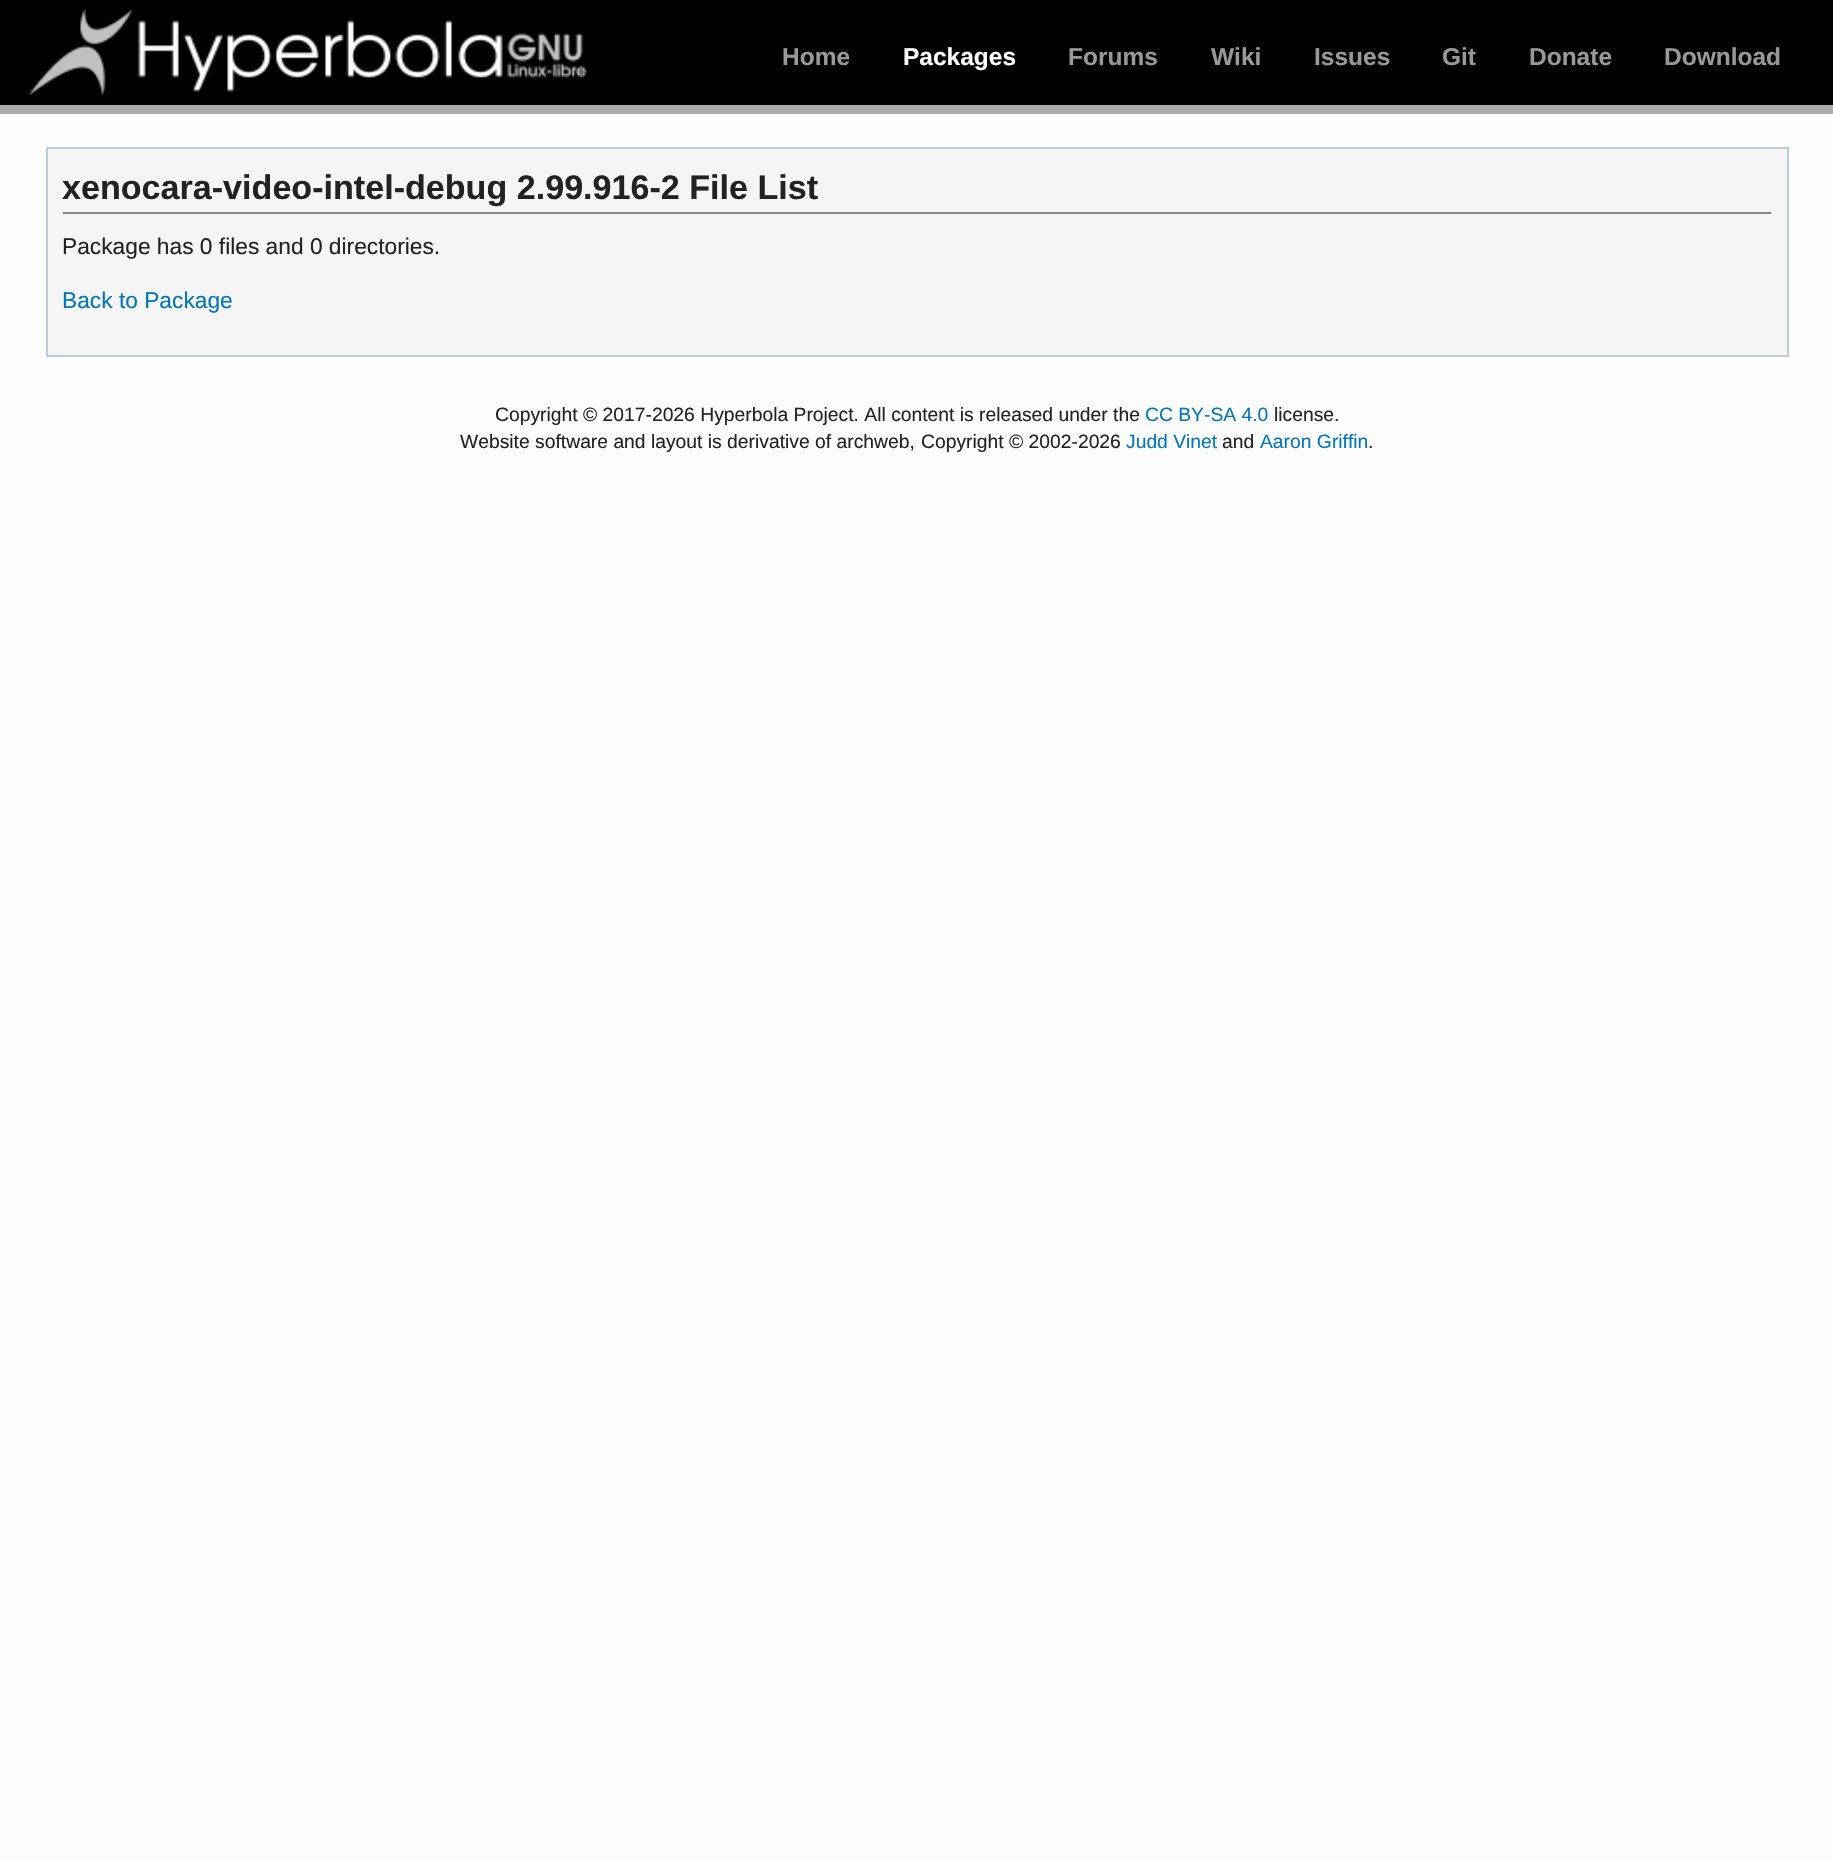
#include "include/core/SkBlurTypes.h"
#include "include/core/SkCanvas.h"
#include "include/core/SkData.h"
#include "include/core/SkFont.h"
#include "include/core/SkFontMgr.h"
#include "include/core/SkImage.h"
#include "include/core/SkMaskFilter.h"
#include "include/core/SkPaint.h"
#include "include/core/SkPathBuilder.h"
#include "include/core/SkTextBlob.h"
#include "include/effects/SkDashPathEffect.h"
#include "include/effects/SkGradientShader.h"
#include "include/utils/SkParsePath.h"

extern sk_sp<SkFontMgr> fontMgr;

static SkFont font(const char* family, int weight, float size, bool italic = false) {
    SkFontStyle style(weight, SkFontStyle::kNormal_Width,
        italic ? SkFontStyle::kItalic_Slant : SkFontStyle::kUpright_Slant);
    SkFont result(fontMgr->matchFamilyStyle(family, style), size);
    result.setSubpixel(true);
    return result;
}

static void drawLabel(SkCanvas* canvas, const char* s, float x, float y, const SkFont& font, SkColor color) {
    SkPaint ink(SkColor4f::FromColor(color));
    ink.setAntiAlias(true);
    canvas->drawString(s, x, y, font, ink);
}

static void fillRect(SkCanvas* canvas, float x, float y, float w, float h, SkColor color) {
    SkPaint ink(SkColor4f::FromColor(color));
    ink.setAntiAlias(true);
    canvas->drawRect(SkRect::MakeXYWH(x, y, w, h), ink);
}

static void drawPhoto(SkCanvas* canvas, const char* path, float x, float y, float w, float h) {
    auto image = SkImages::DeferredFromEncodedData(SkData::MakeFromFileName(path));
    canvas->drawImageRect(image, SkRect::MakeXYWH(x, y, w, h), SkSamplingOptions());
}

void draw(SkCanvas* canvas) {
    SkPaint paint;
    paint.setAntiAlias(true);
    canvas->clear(0xFFFCFCFC);
    fillRect(canvas, 0, 0, 1833, 105, 0xFF000000);
    fillRect(canvas, 0, 105, 1833, 9, 0xFFABABAB);
    drawPhoto(canvas, "assets/img1.png", 28, 8, 559, 88);
    SkFont font1 = font("Liberation Sans", 700, 24.5f);
    drawLabel(canvas, "Home", 782, 65, font1, 0xFF999999);
    drawLabel(canvas, "Packages", 903, 65, font1, 0xFFFFFFFF);
    drawLabel(canvas, "Forums", 1068, 65, font1, 0xFF999999);
    drawLabel(canvas, "Wiki", 1211, 65, font1, 0xFF999999);
    drawLabel(canvas, "Issues", 1314, 65, font1, 0xFF999999);
    drawLabel(canvas, "Git", 1442, 65, font1, 0xFF999999);
    drawLabel(canvas, "Donate", 1529, 65, font1, 0xFF999999);
    drawLabel(canvas, "Download", 1664, 65, font1, 0xFF999999);
    paint.setColor(0xFFF5F5F5);
    canvas->drawRect(SkRect::MakeXYWH(47, 148, 1741, 208), paint);
    paint.setStroke(true);
    paint.setStrokeWidth(2);
    paint.setColor(0xFFBBCCDD);
    canvas->drawRect(SkRect::MakeXYWH(47, 148, 1741, 208), paint);
    fillRect(canvas, 63, 212, 1708, 2, 0xFF888888);
    SkFont font2 = font("Liberation Sans", 700, 34.1f);
    drawLabel(canvas, "xenocara-video-intel-debug 2.99.916-2 File List", 62, 199, font2, 0xFF222222);
    SkFont font3 = font("Liberation Sans", 400, 22.75f);
    drawLabel(canvas, "Package has 0 files and 0 directories.", 62, 254, font3, 0xFF222222);
    drawLabel(canvas, "Back to Package", 62, 308, font3, 0xFF0077BB);
    SkFont font4 = font("Liberation Sans", 400, 19.3f);
    drawLabel(canvas, "Copyright © 2017-2026 Hyperbola Project. All content is", 495, 421, font4, 0xFF222222);
    drawLabel(canvas, "released under the", 979, 421, font4, 0xFF222222);
    drawLabel(canvas, "CC BY-SA 4.0", 1145, 421, font4, 0xFF0077BB);
    drawLabel(canvas, "license.", 1274, 421, font4, 0xFF222222);
    drawLabel(canvas, "Website software and layout is derivative of archweb,", 460, 448, font4, 0xFF222222);
    drawLabel(canvas, "Copyright © 2002-2026", 921, 448, font4, 0xFF222222);
    drawLabel(canvas, "Judd Vinet", 1126, 448, font4, 0xFF0077BB);
    drawLabel(canvas, "and", 1222, 448, font4, 0xFF222222);
    drawLabel(canvas, "Aaron Griffin", 1260, 448, font4, 0xFF0077BB);
    drawLabel(canvas, ".", 1368, 448, font4, 0xFF222222);
}
